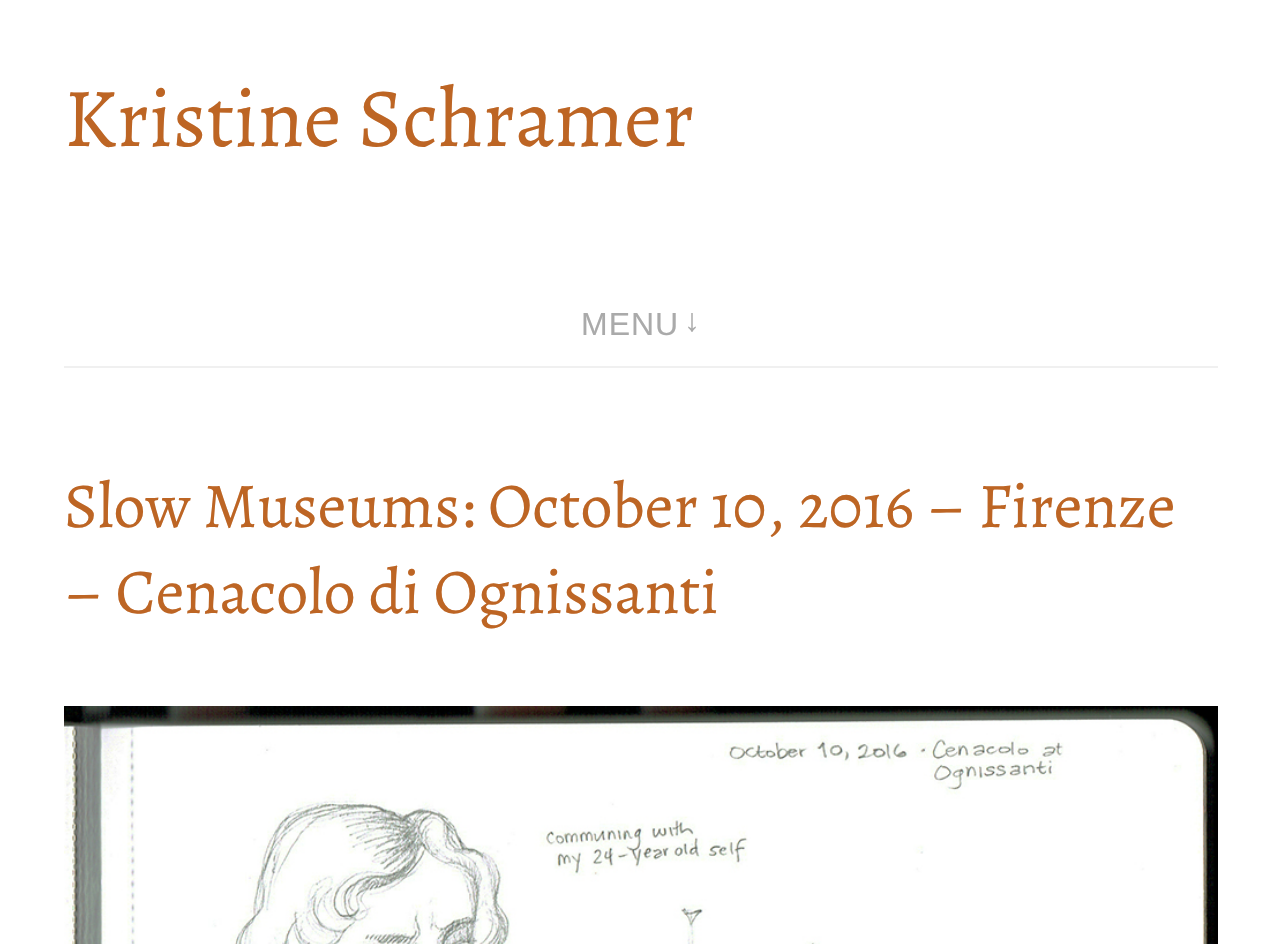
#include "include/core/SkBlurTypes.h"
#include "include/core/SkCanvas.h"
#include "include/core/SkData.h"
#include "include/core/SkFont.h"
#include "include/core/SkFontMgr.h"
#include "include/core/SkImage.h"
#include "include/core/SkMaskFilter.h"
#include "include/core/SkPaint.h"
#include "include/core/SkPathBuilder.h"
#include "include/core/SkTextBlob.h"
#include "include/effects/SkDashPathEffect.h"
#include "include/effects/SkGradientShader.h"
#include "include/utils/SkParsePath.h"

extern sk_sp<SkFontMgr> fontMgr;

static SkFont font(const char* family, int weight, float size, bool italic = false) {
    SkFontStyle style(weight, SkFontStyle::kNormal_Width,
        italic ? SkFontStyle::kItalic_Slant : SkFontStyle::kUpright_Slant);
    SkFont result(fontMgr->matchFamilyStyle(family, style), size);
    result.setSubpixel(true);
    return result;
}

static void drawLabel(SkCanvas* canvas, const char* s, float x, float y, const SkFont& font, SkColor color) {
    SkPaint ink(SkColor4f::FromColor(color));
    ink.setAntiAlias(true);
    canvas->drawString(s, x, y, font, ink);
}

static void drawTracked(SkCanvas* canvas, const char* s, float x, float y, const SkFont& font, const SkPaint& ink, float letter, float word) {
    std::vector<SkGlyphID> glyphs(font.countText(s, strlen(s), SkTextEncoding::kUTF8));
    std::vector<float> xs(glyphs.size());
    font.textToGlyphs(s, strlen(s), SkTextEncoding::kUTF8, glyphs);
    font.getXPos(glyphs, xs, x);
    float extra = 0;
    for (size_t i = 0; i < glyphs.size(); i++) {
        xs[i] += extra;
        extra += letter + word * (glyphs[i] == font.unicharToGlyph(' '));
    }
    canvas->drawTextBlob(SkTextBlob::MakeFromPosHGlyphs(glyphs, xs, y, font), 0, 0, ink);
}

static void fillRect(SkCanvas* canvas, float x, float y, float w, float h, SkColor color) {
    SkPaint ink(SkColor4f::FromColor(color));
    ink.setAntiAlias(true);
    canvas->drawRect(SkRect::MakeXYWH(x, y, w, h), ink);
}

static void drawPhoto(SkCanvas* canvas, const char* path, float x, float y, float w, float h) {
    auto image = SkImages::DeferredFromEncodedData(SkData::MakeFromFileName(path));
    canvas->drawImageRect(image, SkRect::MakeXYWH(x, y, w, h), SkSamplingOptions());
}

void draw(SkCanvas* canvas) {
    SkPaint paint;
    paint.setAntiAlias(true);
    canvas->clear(0xFFFFFFFF);
    SkFont font1 = font("Alegreya", 400, 84);
    drawLabel(canvas, "Kristine Schramer", 64, 146, font1, 0xFFBD6524);
    fillRect(canvas, 64, 366, 1154, 2, 0xFFF0F0F0);
    SkFont font2 = font("Arimo", 400, 32);
    paint.setColor(0xFFAAAAAA);
    drawTracked(canvas, "MENU", 581, 335, font2, paint, 1, 0);
    drawTracked(canvas, "↓", 684, 331, font2, paint, 1, 0);
    SkFont font3 = font("Alegreya", 400, 64);
    drawLabel(canvas, "Slow Museums: October 10, 2016 – Firenze", 64, 527, font3, 0xFFBD6524);
    drawLabel(canvas, "– Cenacolo di Ognissanti", 64, 613, font3, 0xFFBD6524);
    drawPhoto(canvas, "assets/img1.png", 64, 706, 1154, 238);
}
